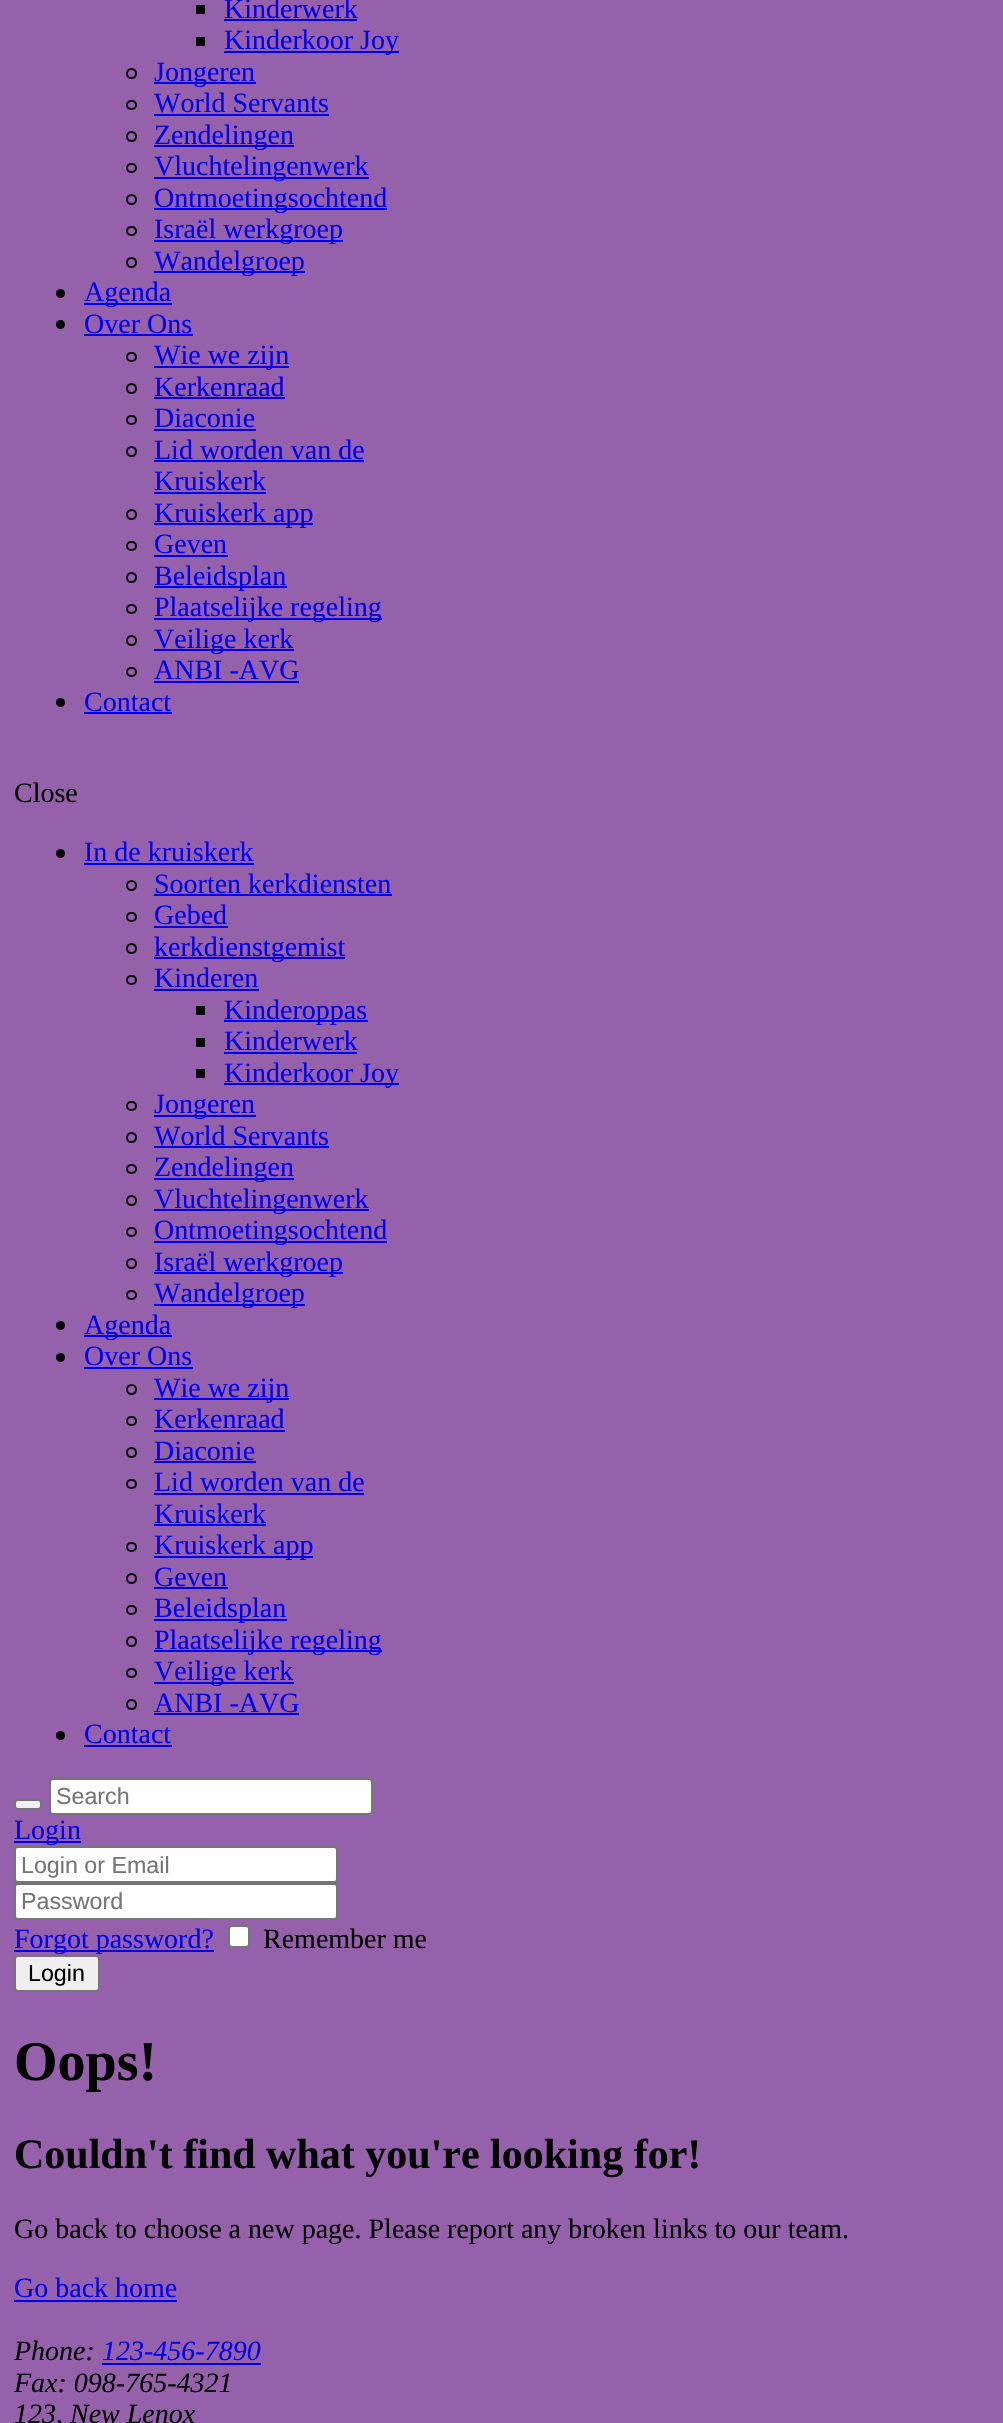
#include "include/core/SkBlurTypes.h"
#include "include/core/SkCanvas.h"
#include "include/core/SkData.h"
#include "include/core/SkFont.h"
#include "include/core/SkFontMgr.h"
#include "include/core/SkImage.h"
#include "include/core/SkMaskFilter.h"
#include "include/core/SkPaint.h"
#include "include/core/SkPathBuilder.h"
#include "include/core/SkTextBlob.h"
#include "include/effects/SkDashPathEffect.h"
#include "include/effects/SkGradientShader.h"
#include "include/utils/SkParsePath.h"

extern sk_sp<SkFontMgr> fontMgr;

static SkFont font(const char* family, int weight, float size, bool italic = false) {
    SkFontStyle style(weight, SkFontStyle::kNormal_Width,
        italic ? SkFontStyle::kItalic_Slant : SkFontStyle::kUpright_Slant);
    SkFont result(fontMgr->matchFamilyStyle(family, style), size);
    result.setSubpixel(true);
    return result;
}

static void drawLabel(SkCanvas* canvas, const char* s, float x, float y, const SkFont& font, SkColor color) {
    SkPaint ink(SkColor4f::FromColor(color));
    ink.setAntiAlias(true);
    canvas->drawString(s, x, y, font, ink);
}

static void fillRect(SkCanvas* canvas, float x, float y, float w, float h, SkColor color) {
    SkPaint ink(SkColor4f::FromColor(color));
    ink.setAntiAlias(true);
    canvas->drawRect(SkRect::MakeXYWH(x, y, w, h), ink);
}

void draw(SkCanvas* canvas) {
    SkPaint paint;
    paint.setAntiAlias(true);
    canvas->clear(0xFF9661AB);
    fillRect(canvas, 196, 5, 9, 9, 0xFF000000);
    SkFont font1 = font("Liberation Serif", 400, 28);
    drawLabel(canvas, "Kinderwerk", 224, 18, font1, 0xFF0000EE);
    fillRect(canvas, 224, 19, 133, 2, 0xFF0000EE);
    fillRect(canvas, 196, 37, 9, 9, 0xFF000000);
    fillRect(canvas, 224, 51, 175, 2, 0xFF0000EE);
    drawLabel(canvas, "Kinderkoor Joy", 224, 49, font1, 0xFF0000EE);
    paint.setStroke(true);
    paint.setStrokeWidth(2);
    paint.setColor(0xFF000000);
    canvas->drawCircle(131.5f, 73.5f, 4.5f, paint);
    fillRect(canvas, 154, 82, 102, 2, 0xFF0000EE);
    drawLabel(canvas, "Jongeren", 154, 81, font1, 0xFF0000EE);
    canvas->drawRoundRect(SkRect::MakeXYWH(127, 101, 9, 8), 4, 4, paint);
    drawLabel(canvas, "World Servants", 154, 112, font1, 0xFF0000EE);
    fillRect(canvas, 154, 114, 175, 2, 0xFF0000EE);
    canvas->drawCircle(131.5f, 136.5f, 4.5f, paint);
    fillRect(canvas, 154, 145, 140, 2, 0xFF0000EE);
    drawLabel(canvas, "Zendelingen", 154, 144, font1, 0xFF0000EE);
    canvas->drawRoundRect(SkRect::MakeXYWH(127, 164, 9, 8), 4, 4, paint);
    fillRect(canvas, 154, 177, 215, 2, 0xFF0000EE);
    drawLabel(canvas, "Vluchtelingenwerk", 154, 175, font1, 0xFF0000EE);
    canvas->drawCircle(131.5f, 199.5f, 4.5f, paint);
    fillRect(canvas, 154, 208, 233, 2, 0xFF0000EE);
    drawLabel(canvas, "Ontmoetingsochtend", 154, 207, font1, 0xFF0000EE);
    canvas->drawRoundRect(SkRect::MakeXYWH(127, 227, 9, 8), 4, 4, paint);
    fillRect(canvas, 154, 240, 189, 2, 0xFF0000EE);
    drawLabel(canvas, "Israël werkgroep", 154, 238, font1, 0xFF0000EE);
    canvas->drawCircle(131.5f, 262.5f, 4.5f, paint);
    fillRect(canvas, 154, 271, 151, 2, 0xFF0000EE);
    drawLabel(canvas, "Wandelgroep", 154, 270, font1, 0xFF0000EE);
    paint.setStroke(false);
    canvas->drawCircle(60.5f, 293.5f, 4.5f, paint);
    fillRect(canvas, 84, 303, 88, 2, 0xFF0000EE);
    drawLabel(canvas, "Agenda", 84, 301, font1, 0xFF0000EE);
    canvas->drawCircle(60.5f, 324.5f, 4.5f, paint);
    drawLabel(canvas, "Over Ons", 84, 333, font1, 0xFF0000EE);
    fillRect(canvas, 84, 334, 109, 2, 0xFF0000EE);
    paint.setStroke(true);
    canvas->drawRoundRect(SkRect::MakeXYWH(127, 353, 9, 8), 4, 4, paint);
    fillRect(canvas, 154, 366, 135, 2, 0xFF0000EE);
    drawLabel(canvas, "Wie we zijn", 154, 364, font1, 0xFF0000EE);
    canvas->drawCircle(131.5f, 388.5f, 4.5f, paint);
    drawLabel(canvas, "Kerkenraad", 154, 396, font1, 0xFF0000EE);
    fillRect(canvas, 154, 397, 131, 2, 0xFF0000EE);
    canvas->drawRoundRect(SkRect::MakeXYWH(127, 416, 9, 8), 4, 4, paint);
    drawLabel(canvas, "Diaconie", 154, 427, font1, 0xFF0000EE);
    fillRect(canvas, 154, 429, 102, 2, 0xFF0000EE);
    canvas->drawCircle(131.5f, 451.5f, 4.5f, paint);
    drawLabel(canvas, "Lid worden van de", 154, 459, font1, 0xFF0000EE);
    fillRect(canvas, 154, 460, 210, 2, 0xFF0000EE);
    drawLabel(canvas, "Kruiskerk", 154, 490, font1, 0xFF0000EE);
    fillRect(canvas, 154, 492, 112, 2, 0xFF0000EE);
    canvas->drawCircle(131.5f, 514.5f, 4.5f, paint);
    fillRect(canvas, 154, 523, 159, 2, 0xFF0000EE);
    drawLabel(canvas, "Kruiskerk app", 154, 522, font1, 0xFF0000EE);
    canvas->drawRoundRect(SkRect::MakeXYWH(127, 542, 9, 8), 4, 4, paint);
    drawLabel(canvas, "Geven", 154, 553, font1, 0xFF0000EE);
    fillRect(canvas, 154, 555, 74, 2, 0xFF0000EE);
    canvas->drawCircle(131.5f, 577.5f, 4.5f, paint);
    fillRect(canvas, 154, 586, 133, 2, 0xFF0000EE);
    drawLabel(canvas, "Beleidsplan", 154, 585, font1, 0xFF0000EE);
    canvas->drawRoundRect(SkRect::MakeXYWH(127, 605, 9, 8), 4, 4, paint);
    fillRect(canvas, 154, 618, 228, 2, 0xFF0000EE);
    drawLabel(canvas, "Plaatselijke regeling", 154, 616, font1, 0xFF0000EE);
    canvas->drawCircle(131.5f, 640.5f, 4.5f, paint);
    fillRect(canvas, 154, 649, 140, 2, 0xFF0000EE);
    drawLabel(canvas, "Veilige kerk", 154, 648, font1, 0xFF0000EE);
    canvas->drawRoundRect(SkRect::MakeXYWH(127, 668, 9, 8), 4, 4, paint);
    drawLabel(canvas, "ANBI -AVG", 154, 679, font1, 0xFF0000EE);
    fillRect(canvas, 154, 681, 145, 2, 0xFF0000EE);
    paint.setStroke(false);
    canvas->drawCircle(60.5f, 702.5f, 4.5f, paint);
    drawLabel(canvas, "Contact", 84, 711, font1, 0xFF0000EE);
    fillRect(canvas, 84, 712, 88, 2, 0xFF0000EE);
    drawLabel(canvas, "Close", 14, 802, font1, 0xFF000000);
    canvas->drawCircle(60.5f, 853.5f, 4.5f, paint);
    drawLabel(canvas, "In de kruiskerk", 84, 861, font1, 0xFF0000EE);
    fillRect(canvas, 84, 863, 170, 2, 0xFF0000EE);
    paint.setStroke(true);
    canvas->drawCircle(131.5f, 885.5f, 4.5f, paint);
    drawLabel(canvas, "Soorten kerkdiensten", 154, 893, font1, 0xFF0000EE);
    fillRect(canvas, 154, 894, 238, 2, 0xFF0000EE);
    canvas->drawRoundRect(SkRect::MakeXYWH(127, 913, 9, 8), 4, 4, paint);
    drawLabel(canvas, "Gebed", 154, 924, font1, 0xFF0000EE);
    fillRect(canvas, 154, 926, 74, 2, 0xFF0000EE);
    canvas->drawCircle(131.5f, 948.5f, 4.5f, paint);
    fillRect(canvas, 154, 957, 191, 2, 0xFF0000EE);
    drawLabel(canvas, "kerkdienstgemist", 154, 956, font1, 0xFF0000EE);
    canvas->drawRoundRect(SkRect::MakeXYWH(127, 976, 9, 8), 4, 4, paint);
    drawLabel(canvas, "Kinderen", 154, 987, font1, 0xFF0000EE);
    fillRect(canvas, 154, 989, 105, 2, 0xFF0000EE);
    fillRect(canvas, 196, 1006, 9, 9, 0xFF000000);
    fillRect(canvas, 224, 1020, 144, 2, 0xFF0000EE);
    drawLabel(canvas, "Kinderoppas", 224, 1019, font1, 0xFF0000EE);
    fillRect(canvas, 196, 1038, 9, 9, 0xFF000000);
    drawLabel(canvas, "Kinderwerk", 224, 1050, font1, 0xFF0000EE);
    fillRect(canvas, 224, 1052, 133, 2, 0xFF0000EE);
    fillRect(canvas, 196, 1069, 9, 9, 0xFF000000);
    fillRect(canvas, 224, 1083, 175, 2, 0xFF0000EE);
    drawLabel(canvas, "Kinderkoor Joy", 224, 1082, font1, 0xFF0000EE);
    canvas->drawRoundRect(SkRect::MakeXYWH(127, 1102, 9, 8), 4, 4, paint);
    fillRect(canvas, 154, 1115, 102, 2, 0xFF0000EE);
    drawLabel(canvas, "Jongeren", 154, 1113, font1, 0xFF0000EE);
    canvas->drawCircle(131.5f, 1137.5f, 4.5f, paint);
    drawLabel(canvas, "World Servants", 154, 1145, font1, 0xFF0000EE);
    fillRect(canvas, 154, 1146, 175, 2, 0xFF0000EE);
    canvas->drawRoundRect(SkRect::MakeXYWH(127, 1165, 9, 8), 4, 4, paint);
    fillRect(canvas, 154, 1178, 140, 2, 0xFF0000EE);
    drawLabel(canvas, "Zendelingen", 154, 1176, font1, 0xFF0000EE);
    canvas->drawCircle(131.5f, 1200.5f, 4.5f, paint);
    fillRect(canvas, 154, 1209, 215, 2, 0xFF0000EE);
    drawLabel(canvas, "Vluchtelingenwerk", 154, 1208, font1, 0xFF0000EE);
    canvas->drawRoundRect(SkRect::MakeXYWH(127, 1228, 9, 8), 4, 4, paint);
    fillRect(canvas, 154, 1241, 233, 2, 0xFF0000EE);
    drawLabel(canvas, "Ontmoetingsochtend", 154, 1239, font1, 0xFF0000EE);
    canvas->drawCircle(131.5f, 1263.5f, 4.5f, paint);
    fillRect(canvas, 154, 1272, 189, 2, 0xFF0000EE);
    drawLabel(canvas, "Israël werkgroep", 154, 1271, font1, 0xFF0000EE);
    canvas->drawRoundRect(SkRect::MakeXYWH(127, 1291, 9, 8), 4, 4, paint);
    fillRect(canvas, 154, 1304, 151, 2, 0xFF0000EE);
    drawLabel(canvas, "Wandelgroep", 154, 1302, font1, 0xFF0000EE);
    paint.setStroke(false);
    canvas->drawCircle(60.5f, 1325.5f, 4.5f, paint);
    fillRect(canvas, 84, 1335, 88, 2, 0xFF0000EE);
    drawLabel(canvas, "Agenda", 84, 1334, font1, 0xFF0000EE);
    canvas->drawCircle(60.5f, 1357.5f, 4.5f, paint);
    drawLabel(canvas, "Over Ons", 84, 1365, font1, 0xFF0000EE);
    fillRect(canvas, 84, 1367, 109, 2, 0xFF0000EE);
    paint.setStroke(true);
    canvas->drawCircle(131.5f, 1389.5f, 4.5f, paint);
    fillRect(canvas, 154, 1398, 135, 2, 0xFF0000EE);
    drawLabel(canvas, "Wie we zijn", 154, 1397, font1, 0xFF0000EE);
    canvas->drawRoundRect(SkRect::MakeXYWH(127, 1417, 9, 8), 4, 4, paint);
    drawLabel(canvas, "Kerkenraad", 154, 1428, font1, 0xFF0000EE);
    fillRect(canvas, 154, 1430, 131, 2, 0xFF0000EE);
    canvas->drawCircle(131.5f, 1452.5f, 4.5f, paint);
    drawLabel(canvas, "Diaconie", 154, 1460, font1, 0xFF0000EE);
    fillRect(canvas, 154, 1461, 102, 2, 0xFF0000EE);
    canvas->drawRoundRect(SkRect::MakeXYWH(127, 1480, 9, 8), 4, 4, paint);
    drawLabel(canvas, "Lid worden van de", 154, 1491, font1, 0xFF0000EE);
    fillRect(canvas, 154, 1493, 210, 2, 0xFF0000EE);
    drawLabel(canvas, "Kruiskerk", 154, 1523, font1, 0xFF0000EE);
    fillRect(canvas, 154, 1524, 112, 2, 0xFF0000EE);
    canvas->drawRoundRect(SkRect::MakeXYWH(127, 1543, 9, 8), 4, 4, paint);
    fillRect(canvas, 154, 1556, 159, 2, 0xFF0000EE);
    drawLabel(canvas, "Kruiskerk app", 154, 1554, font1, 0xFF0000EE);
    canvas->drawCircle(131.5f, 1578.5f, 4.5f, paint);
    drawLabel(canvas, "Geven", 154, 1586, font1, 0xFF0000EE);
    fillRect(canvas, 154, 1587, 74, 2, 0xFF0000EE);
    canvas->drawRoundRect(SkRect::MakeXYWH(127, 1606, 9, 8), 4, 4, paint);
    fillRect(canvas, 154, 1619, 133, 2, 0xFF0000EE);
    drawLabel(canvas, "Beleidsplan", 154, 1617, font1, 0xFF0000EE);
    canvas->drawCircle(131.5f, 1641.5f, 4.5f, paint);
    fillRect(canvas, 154, 1650, 228, 2, 0xFF0000EE);
    drawLabel(canvas, "Plaatselijke regeling", 154, 1649, font1, 0xFF0000EE);
    canvas->drawRoundRect(SkRect::MakeXYWH(127, 1669, 9, 8), 4, 4, paint);
    fillRect(canvas, 154, 1682, 140, 2, 0xFF0000EE);
    drawLabel(canvas, "Veilige kerk", 154, 1680, font1, 0xFF0000EE);
    canvas->drawCircle(131.5f, 1704.5f, 4.5f, paint);
    drawLabel(canvas, "ANBI -AVG", 154, 1712, font1, 0xFF0000EE);
    fillRect(canvas, 154, 1713, 145, 2, 0xFF0000EE);
    paint.setStroke(false);
    canvas->drawCircle(60.5f, 1735.5f, 4.5f, paint);
    drawLabel(canvas, "Contact", 84, 1743, font1, 0xFF0000EE);
    fillRect(canvas, 84, 1745, 88, 2, 0xFF0000EE);
    paint.setColor(0xFFEFEFEF);
    canvas->drawRoundRect(SkRect::MakeXYWH(15, 1800, 26, 9), 3, 3, paint);
    paint.setStroke(true);
    paint.setColor(0xFF767676);
    canvas->drawRoundRect(SkRect::MakeXYWH(15, 1800, 26, 9), 3, 3, paint);
    paint.setStroke(false);
    paint.setColor(0xFFFFFFFF);
    canvas->drawRoundRect(SkRect::MakeXYWH(50, 1779, 322, 35), 3, 3, paint);
    paint.setStroke(true);
    paint.setColor(0xFF767676);
    canvas->drawRoundRect(SkRect::MakeXYWH(50, 1779, 322, 35), 3, 3, paint);
    SkFont font2 = font("Liberation Sans", 400, 23.25f);
    drawLabel(canvas, "Search", 56, 1804, font2, 0xFF757575);
    fillRect(canvas, 14, 1841, 67, 2, 0xFF0000EE);
    drawLabel(canvas, "Login", 14, 1839, font1, 0xFF0000EE);
    paint.setStroke(false);
    paint.setColor(0xFFFFFFFF);
    canvas->drawRoundRect(SkRect::MakeXYWH(15, 1847, 322, 35), 3, 3, paint);
    paint.setStroke(true);
    paint.setColor(0xFF767676);
    canvas->drawRoundRect(SkRect::MakeXYWH(15, 1847, 322, 35), 3, 3, paint);
    drawLabel(canvas, "Login or Email", 21, 1873, font2, 0xFF757575);
    paint.setStroke(false);
    paint.setColor(0xFFFFFFFF);
    canvas->drawRoundRect(SkRect::MakeXYWH(15, 1884, 322, 35), 3, 3, paint);
    paint.setStroke(true);
    paint.setColor(0xFF767676);
    canvas->drawRoundRect(SkRect::MakeXYWH(15, 1884, 322, 35), 3, 3, paint);
    drawLabel(canvas, "Password", 21, 1909, font2, 0xFF757575);
    fillRect(canvas, 14, 1950, 200, 2, 0xFF0000EE);
    drawLabel(canvas, "Forgot password?", 14, 1948, font1, 0xFF0000EE);
    paint.setStroke(false);
    paint.setColor(0xFFFFFFFF);
    canvas->drawRoundRect(SkRect::MakeXYWH(229, 1926, 20, 21), 3, 3, paint);
    paint.setStroke(true);
    paint.setColor(0xFF767676);
    canvas->drawRoundRect(SkRect::MakeXYWH(229, 1926, 20, 21), 3, 3, paint);
    drawLabel(canvas, "Remember me", 263, 1948, font1, 0xFF000000);
    paint.setStroke(false);
    paint.setColor(0xFFEFEFEF);
    canvas->drawRoundRect(SkRect::MakeXYWH(15, 1956, 84, 35), 3, 3, paint);
    paint.setStroke(true);
    paint.setColor(0xFF767676);
    canvas->drawRoundRect(SkRect::MakeXYWH(15, 1956, 84, 35), 3, 3, paint);
    drawLabel(canvas, "Login", 28, 1981, font2, 0xFF000000);
    SkFont font3 = font("Liberation Serif", 700, 56);
    drawLabel(canvas, "Oops!", 14, 2080, font3, 0xFF000000);
    SkFont font4 = font("Liberation Serif", 700, 42);
    drawLabel(canvas, "Couldn't find what you're looking for!", 14, 2168, font4, 0xFF000000);
    drawLabel(canvas, "Go back to choose a new page. Please report any broken links to our team.", 14, 2238, font1, 0xFF000000);
    drawLabel(canvas, "Go back home", 14, 2297, font1, 0xFF0000EE);
    fillRect(canvas, 14, 2300, 163, 2, 0xFF0000EE);
    SkFont font5 = font("Liberation Serif", 400, 28, true);
    drawLabel(canvas, "Phone:", 14, 2360, font5, 0xFF000000);
    drawLabel(canvas, "123-456-7890", 102, 2360, font5, 0xFF0000EE);
    fillRect(canvas, 102, 2363, 159, 2, 0xFF0000EE);
    drawLabel(canvas, "Fax: 098-765-4321", 14, 2392, font5, 0xFF000000);
    drawLabel(canvas, "123, New Lenox", 14, 2423, font5, 0xFF000000);
}
